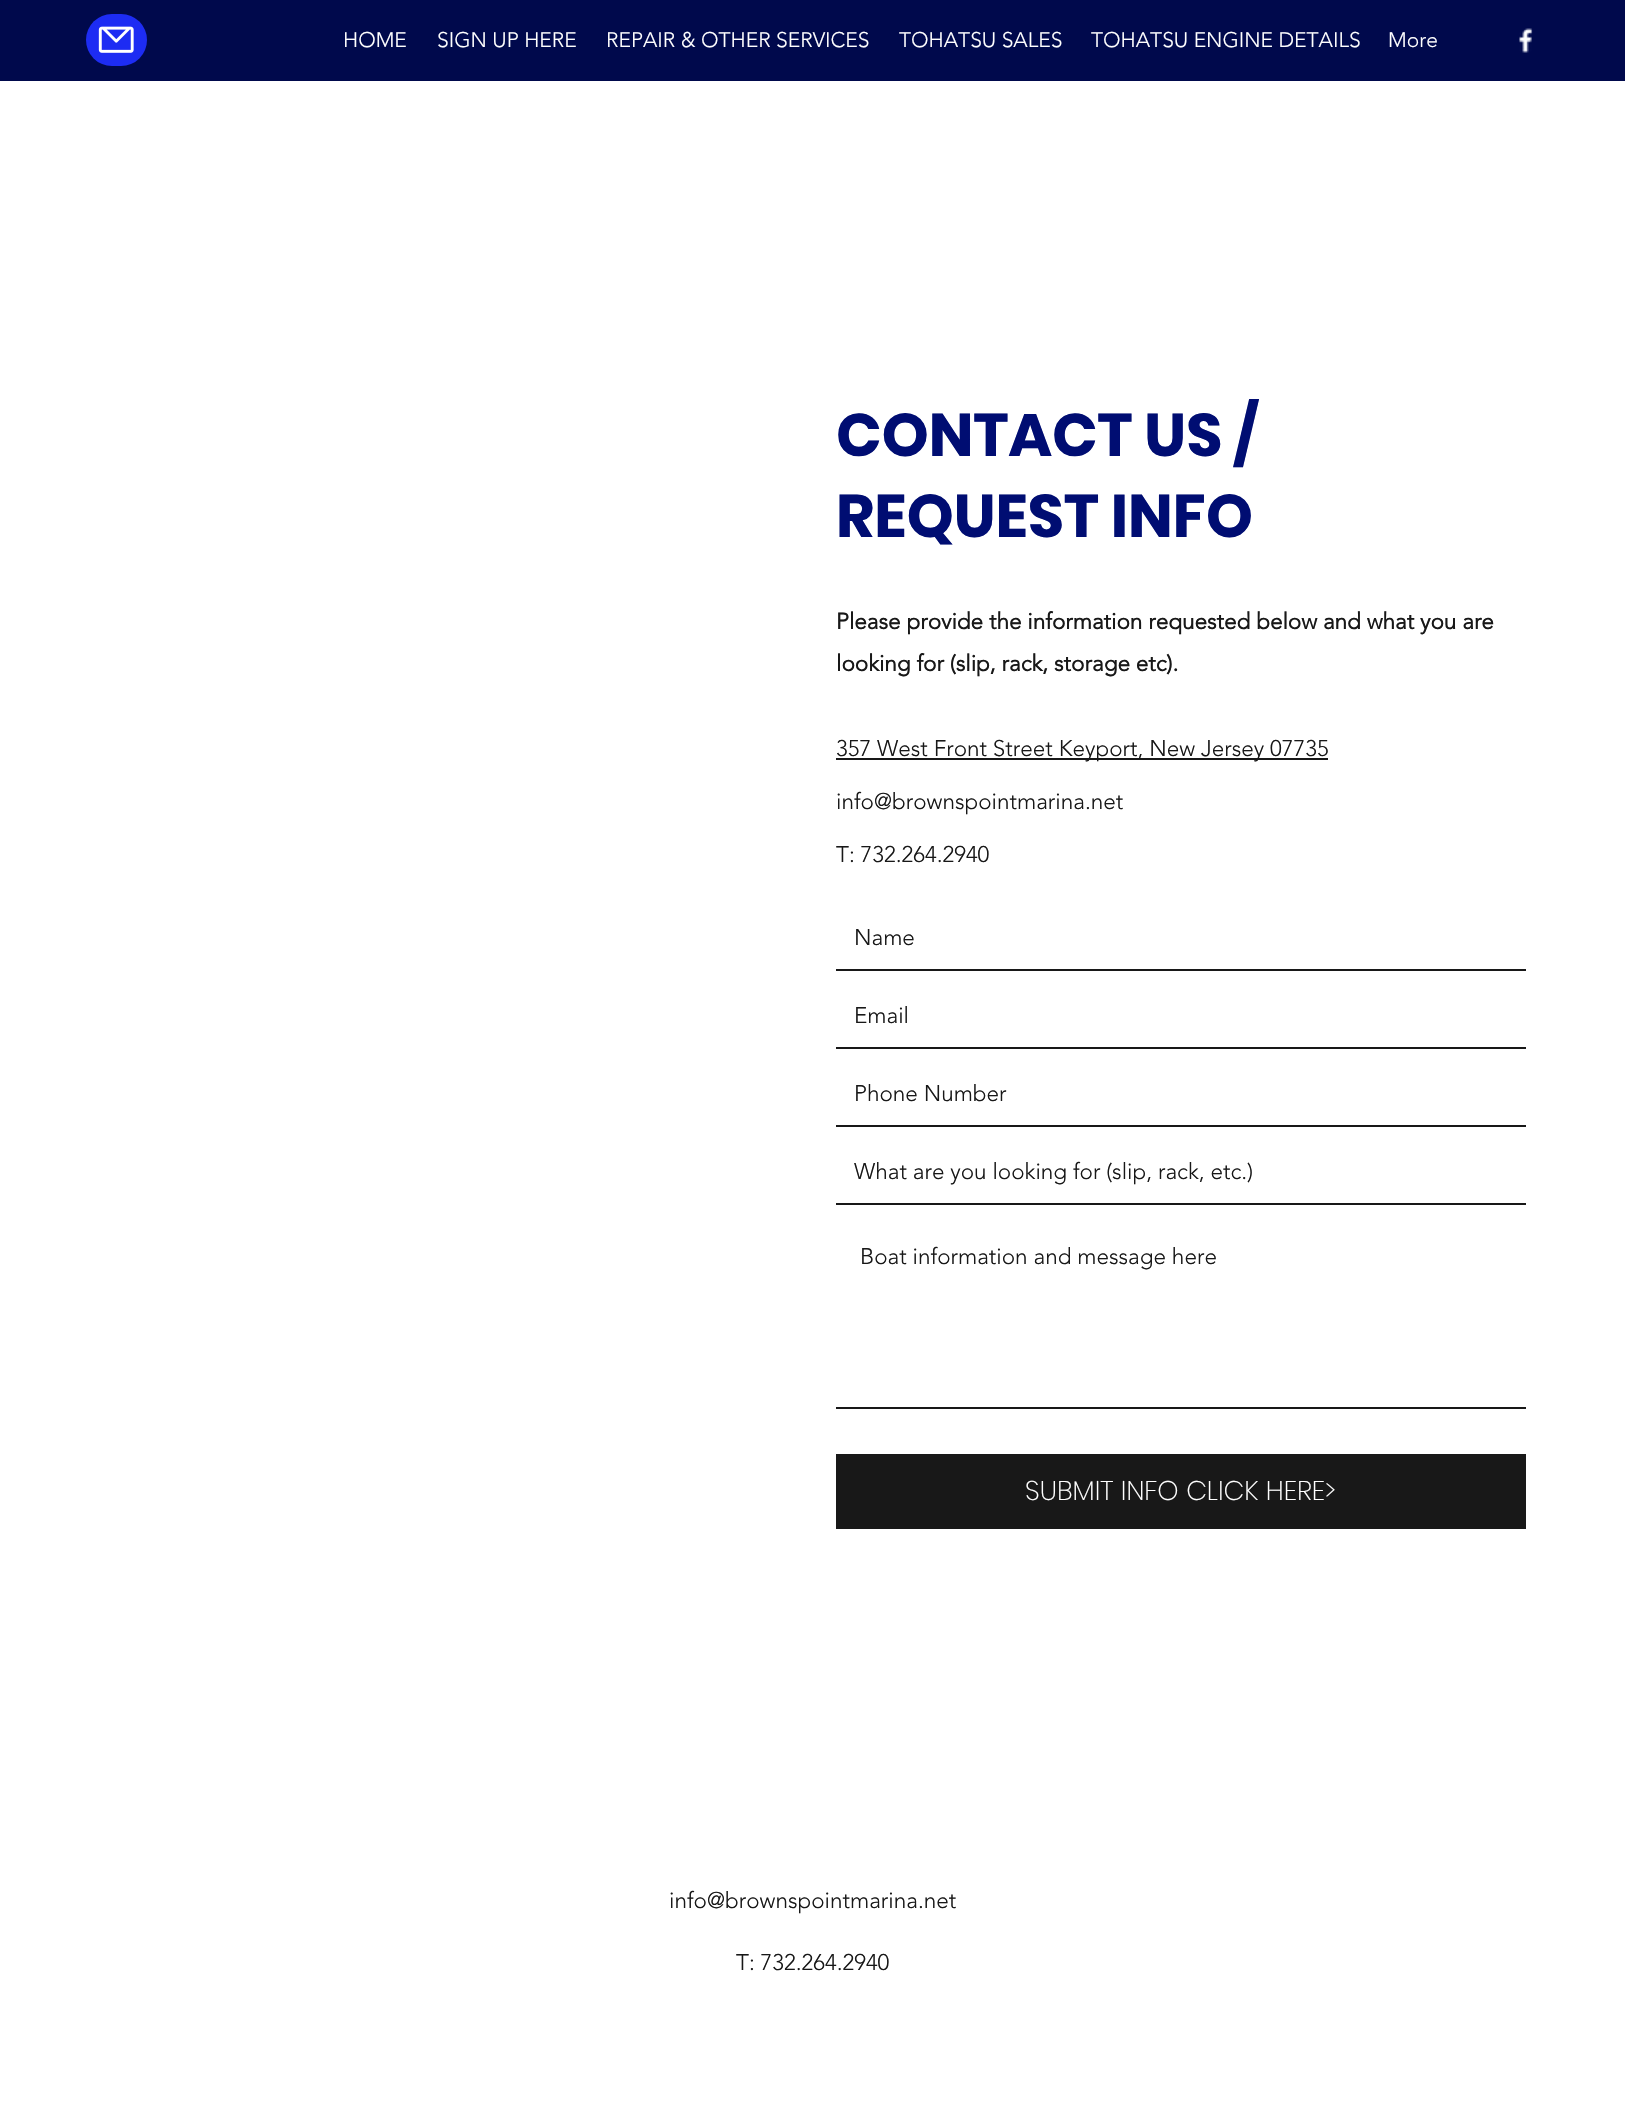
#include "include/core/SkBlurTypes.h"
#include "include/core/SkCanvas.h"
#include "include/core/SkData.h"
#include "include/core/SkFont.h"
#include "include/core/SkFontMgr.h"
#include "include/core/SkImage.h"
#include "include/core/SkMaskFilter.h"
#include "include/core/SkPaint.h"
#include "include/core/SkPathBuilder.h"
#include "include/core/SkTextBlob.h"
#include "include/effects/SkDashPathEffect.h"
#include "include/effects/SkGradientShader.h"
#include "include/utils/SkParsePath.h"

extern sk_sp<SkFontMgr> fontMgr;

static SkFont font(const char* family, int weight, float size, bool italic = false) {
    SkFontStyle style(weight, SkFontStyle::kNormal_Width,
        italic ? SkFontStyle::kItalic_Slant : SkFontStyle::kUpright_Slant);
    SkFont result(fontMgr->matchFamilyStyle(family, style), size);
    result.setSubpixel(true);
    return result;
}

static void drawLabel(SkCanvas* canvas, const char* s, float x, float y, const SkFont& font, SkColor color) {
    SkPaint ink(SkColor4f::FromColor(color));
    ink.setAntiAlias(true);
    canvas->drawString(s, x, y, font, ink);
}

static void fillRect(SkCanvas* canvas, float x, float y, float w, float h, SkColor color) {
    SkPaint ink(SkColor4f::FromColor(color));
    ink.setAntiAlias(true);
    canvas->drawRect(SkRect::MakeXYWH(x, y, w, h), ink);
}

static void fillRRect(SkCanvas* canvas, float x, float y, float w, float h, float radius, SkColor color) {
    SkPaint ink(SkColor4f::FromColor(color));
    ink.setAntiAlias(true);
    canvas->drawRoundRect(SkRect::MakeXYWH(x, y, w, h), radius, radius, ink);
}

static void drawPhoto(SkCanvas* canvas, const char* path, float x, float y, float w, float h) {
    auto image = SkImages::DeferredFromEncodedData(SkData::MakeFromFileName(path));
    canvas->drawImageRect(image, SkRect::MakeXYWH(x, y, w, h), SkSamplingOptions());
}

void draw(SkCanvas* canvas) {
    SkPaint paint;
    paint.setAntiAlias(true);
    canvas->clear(0xFFFFFFFF);
    fillRect(canvas, 0, 0, 1625, 81, 0xFF00094C);
    fillRRect(canvas, 86, 14, 61, 52, 26, 0xFF1D2CF3);
    drawPhoto(canvas, "assets/img1.png", 98, 26, 36, 27);
    SkFont font1 = font("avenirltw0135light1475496", 300, 21);
    drawLabel(canvas, "HOME", 343, 47, font1, 0xFFFFFFFF);
    drawLabel(canvas, "SIGN UP HERE", 437, 47, font1, 0xFFFFFFFF);
    drawLabel(canvas, "REPAIR & OTHER SERVICES", 606, 47, font1, 0xFFFFFFFF);
    drawLabel(canvas, "TOHATSU SALES", 899, 47, font1, 0xFFFFFFFF);
    drawLabel(canvas, "TOHATSU ENGINE DETAILS", 1091, 47, font1, 0xFFFFFFFF);
    drawLabel(canvas, "More", 1388, 47, font1, 0xFFFFFFFF);
    drawPhoto(canvas, "assets/img2.png", 1519, 28, 14, 25);
    SkFont font2 = font("Poppins", 700, 60);
    drawLabel(canvas, "CONTACT US /", 836, 456, font2, 0xFF000D72);
    drawLabel(canvas, "REQUEST INFO", 836, 537, font2, 0xFF000D72);
    SkFont font3 = font("avenirltw0135light1475496", 700, 22.5f);
    drawLabel(canvas, "Please provide the information requested below and what you are", 836, 629, font3, 0xFF181818);
    drawLabel(canvas, "looking for (slip, rack, storage etc).", 836, 671, font3, 0xFF181818);
    fillRect(canvas, 836, 758, 492, 2, 0xFF181818);
    SkFont font4 = font("avenirltw0135light1475496", 300, 22.5f);
    drawLabel(canvas, "357 West Front Street Keyport, New Jersey 07735", 836, 756, font4, 0xFF181818);
    drawLabel(canvas, "info@brownspointmarina.net", 836, 809, font4, 0xFF181818);
    drawLabel(canvas, "T: 732.264.2940", 836, 862, font4, 0xFF181818);
    fillRect(canvas, 836, 969, 690, 2, 0xFF181818);
    drawLabel(canvas, "Name", 854, 945, font4, 0xFF181818);
    fillRect(canvas, 836, 1047, 690, 2, 0xFF181818);
    drawLabel(canvas, "Email", 854, 1023, font4, 0xFF181818);
    fillRect(canvas, 836, 1125, 690, 2, 0xFF181818);
    drawLabel(canvas, "Phone Number", 854, 1101, font4, 0xFF181818);
    fillRect(canvas, 836, 1203, 690, 2, 0xFF181818);
    drawLabel(canvas, "What are you looking for (slip, rack, etc.)", 854, 1179, font4, 0xFF181818);
    fillRect(canvas, 836, 1407, 690, 2, 0xFF181818);
    drawLabel(canvas, "Boat information and message here", 860, 1264, font4, 0xFF181818);
    fillRect(canvas, 836, 1454, 690, 75, 0xFF181818);
    SkFont font5 = font("Poppins", 200, 27);
    drawLabel(canvas, "SUBMIT INFO CLICK HERE>", 1025, 1500, font5, 0xFFFFFFFF);
    drawLabel(canvas, "info@brownspointmarina.net", 669, 1908, font4, 0xFF181818);
    drawLabel(canvas, "T: 732.264.2940", 736, 1970, font4, 0xFF181818);
}
